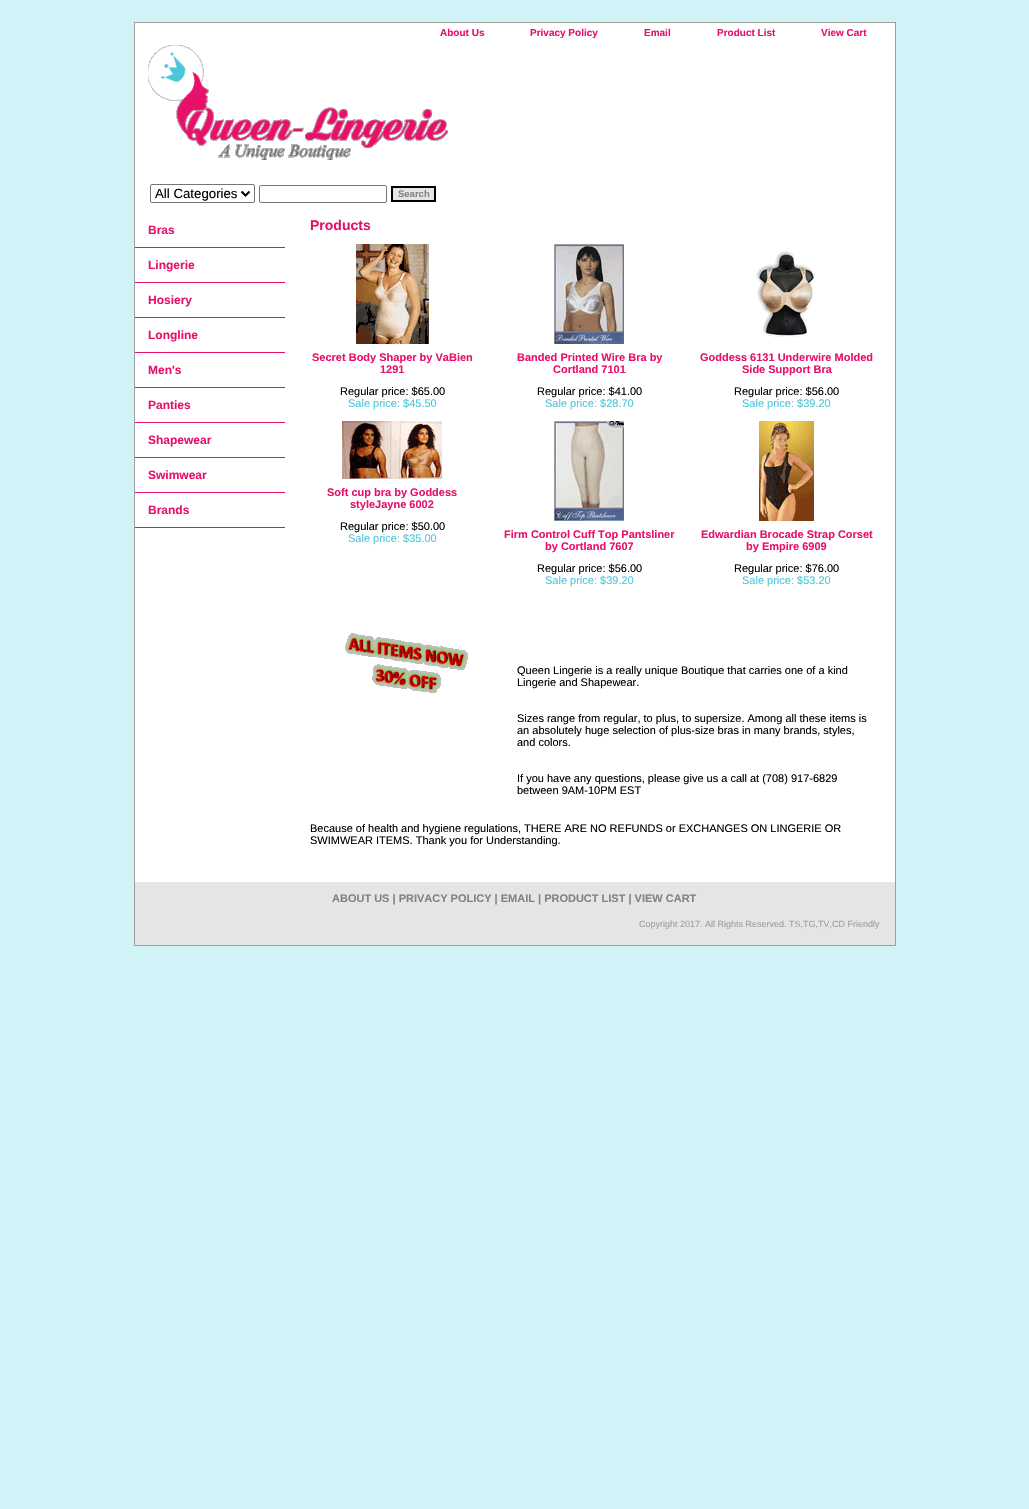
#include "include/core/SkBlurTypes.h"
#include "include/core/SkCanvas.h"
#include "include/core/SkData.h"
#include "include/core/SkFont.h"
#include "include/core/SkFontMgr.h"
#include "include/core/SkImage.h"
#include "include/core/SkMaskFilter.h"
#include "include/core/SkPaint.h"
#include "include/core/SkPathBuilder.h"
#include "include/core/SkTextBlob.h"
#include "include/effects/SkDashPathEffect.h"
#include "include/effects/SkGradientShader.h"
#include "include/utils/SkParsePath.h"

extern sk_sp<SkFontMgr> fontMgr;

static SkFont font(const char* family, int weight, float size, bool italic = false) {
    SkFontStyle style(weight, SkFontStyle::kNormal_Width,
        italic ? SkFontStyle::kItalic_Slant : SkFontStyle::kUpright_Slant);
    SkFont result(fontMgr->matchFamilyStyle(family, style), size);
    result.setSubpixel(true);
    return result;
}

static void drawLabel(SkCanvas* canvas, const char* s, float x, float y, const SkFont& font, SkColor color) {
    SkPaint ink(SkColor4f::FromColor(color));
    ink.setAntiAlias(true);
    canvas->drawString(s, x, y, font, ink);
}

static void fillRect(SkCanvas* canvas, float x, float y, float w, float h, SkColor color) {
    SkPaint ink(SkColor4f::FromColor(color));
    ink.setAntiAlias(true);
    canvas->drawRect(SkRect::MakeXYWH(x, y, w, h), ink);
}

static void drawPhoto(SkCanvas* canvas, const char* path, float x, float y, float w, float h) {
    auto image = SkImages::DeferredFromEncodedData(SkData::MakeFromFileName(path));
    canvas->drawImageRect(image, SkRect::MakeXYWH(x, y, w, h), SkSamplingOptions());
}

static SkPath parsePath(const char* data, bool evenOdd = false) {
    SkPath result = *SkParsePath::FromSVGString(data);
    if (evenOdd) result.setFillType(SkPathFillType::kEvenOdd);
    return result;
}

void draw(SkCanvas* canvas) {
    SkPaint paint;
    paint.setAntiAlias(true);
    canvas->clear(0xFFD0F3F8);
    fillRect(canvas, 135, 23, 760, 859, 0xFFFFFFFF);
    paint.setStroke(true);
    paint.setStrokeWidth(1);
    paint.setColor(0xFF9E9E9D);
    canvas->drawRect(SkRect::MakeXYWH(134.5f, 22.5f, 761, 923), paint);
    SkFont font1 = font("Liberation Sans", 700, 10);
    drawLabel(canvas, "About Us", 440, 36, font1, 0xFFE7116A);
    drawLabel(canvas, "Privacy Policy", 530, 36, font1, 0xFFE7116A);
    drawLabel(canvas, "Email", 644, 36, font1, 0xFFE7116A);
    drawLabel(canvas, "Product List", 717, 36, font1, 0xFFE7116A);
    drawLabel(canvas, "View Cart", 821, 36, font1, 0xFFE7116A);
    drawPhoto(canvas, "assets/img1.png", 148, 45, 300, 115);
    paint.setColor(0xFF767676);
    canvas->drawRoundRect(SkRect::MakeXYWH(150.5f, 184.5f, 104, 18), 1.5f, 1.5f, paint);
    paint.setStrokeWidth(2);
    paint.setColor(0xFF000000);
    canvas->drawPath(parsePath("M241.5 191.5L245.5 195.5L249.5 191.5"), paint);
    SkFont font2 = font("Liberation Sans", 400, 13.25f);
    drawLabel(canvas, "All Categories", 155, 198, font2, 0xFF000000);
    paint.setStrokeWidth(1);
    paint.setColor(0xFF767676);
    canvas->drawRoundRect(SkRect::MakeXYWH(259.5f, 185.5f, 127, 17), 1.5f, 1.5f, paint);
    paint.setStroke(false);
    paint.setColor(0xFFE5E5E5);
    canvas->drawRect(SkRect::MakeXYWH(392, 187, 43, 14), paint);
    paint.setStroke(true);
    paint.setStrokeWidth(2);
    paint.setColor(0xFF000000);
    canvas->drawRect(SkRect::MakeXYWH(392, 187, 43, 14), paint);
    SkFont font3 = font("Liberation Sans", 700, 9.5f);
    drawLabel(canvas, "Search", 398, 197, font3, 0xFF828282);
    fillRect(canvas, 135, 247, 150, 1, 0xFFE7116A);
    SkFont font4 = font("Liberation Sans", 700, 12);
    drawLabel(canvas, "Bras", 148, 234, font4, 0xFFE7116A);
    fillRect(canvas, 135, 282, 150, 1, 0xFFE7116A);
    drawLabel(canvas, "Lingerie", 148, 269, font4, 0xFFE7116A);
    fillRect(canvas, 135, 317, 150, 1, 0xFFE7116A);
    drawLabel(canvas, "Hosiery", 148, 304, font4, 0xFFE7116A);
    fillRect(canvas, 135, 352, 150, 1, 0xFFE7116A);
    drawLabel(canvas, "Longline", 148, 339, font4, 0xFFE7116A);
    fillRect(canvas, 135, 387, 150, 1, 0xFFE7116A);
    drawLabel(canvas, "Men's", 148, 374, font4, 0xFFE7116A);
    fillRect(canvas, 135, 422, 150, 1, 0xFFE7116A);
    drawLabel(canvas, "Panties", 148, 409, font4, 0xFFE7116A);
    fillRect(canvas, 135, 457, 150, 1, 0xFFE7116A);
    drawLabel(canvas, "Shapewear", 148, 444, font4, 0xFFE7116A);
    fillRect(canvas, 135, 492, 150, 1, 0xFFE7116A);
    drawLabel(canvas, "Swimwear", 148, 479, font4, 0xFFE7116A);
    fillRect(canvas, 135, 527, 150, 1, 0xFFE7116A);
    drawLabel(canvas, "Brands", 148, 514, font4, 0xFFE7116A);
    SkFont font5 = font("Liberation Sans", 700, 14);
    drawLabel(canvas, "Products", 310, 230, font5, 0xFFE7116A);
    drawPhoto(canvas, "assets/img2.png", 356, 244, 73, 100);
    SkFont font6 = font("Liberation Sans", 700, 11);
    drawLabel(canvas, "Secret Body Shaper by VaBien", 312, 361, font6, 0xFFE7116A);
    drawLabel(canvas, "1291", 380, 373, font6, 0xFFE7116A);
    SkFont font7 = font("Liberation Sans", 400, 11);
    drawLabel(canvas, "Regular price: $65.00", 340, 395, font7, 0xFF000000);
    drawLabel(canvas, "Sale price: $45.50", 348, 407, font7, 0xFF4EC6D9);
    drawPhoto(canvas, "assets/img3.png", 554, 244, 70, 100);
    drawLabel(canvas, "Banded Printed Wire Bra by", 517, 361, font6, 0xFFE7116A);
    drawLabel(canvas, "Cortland 7101", 553, 373, font6, 0xFFE7116A);
    drawLabel(canvas, "Regular price: $41.00", 537, 395, font7, 0xFF000000);
    drawLabel(canvas, "Sale price: $28.70", 545, 407, font7, 0xFF4EC6D9);
    drawPhoto(canvas, "assets/img4.png", 756, 251, 59, 86);
    drawLabel(canvas, "Goddess 6131 Underwire Molded", 700, 361, font6, 0xFFE7116A);
    drawLabel(canvas, "Side Support Bra", 742, 373, font6, 0xFFE7116A);
    drawLabel(canvas, "Regular price: $56.00", 734, 395, font7, 0xFF000000);
    drawLabel(canvas, "Sale price: $39.20", 742, 407, font7, 0xFF4EC6D9);
    drawPhoto(canvas, "assets/img5.png", 342, 421, 100, 58);
    drawLabel(canvas, "Soft cup bra by Goddess", 327, 496, font6, 0xFFE7116A);
    drawLabel(canvas, "styleJayne 6002", 350, 508, font6, 0xFFE7116A);
    drawLabel(canvas, "Regular price: $50.00", 340, 530, font7, 0xFF000000);
    drawLabel(canvas, "Sale price: $35.00", 348, 542, font7, 0xFF4EC6D9);
    drawPhoto(canvas, "assets/img6.png", 554, 421, 70, 100);
    drawLabel(canvas, "Firm Control Cuff Top Pantsliner", 504, 538, font6, 0xFFE7116A);
    drawLabel(canvas, "by Cortland 7607", 545, 550, font6, 0xFFE7116A);
    drawLabel(canvas, "Regular price: $56.00", 537, 572, font7, 0xFF000000);
    drawLabel(canvas, "Sale price: $39.20", 545, 584, font7, 0xFF4EC6D9);
    drawPhoto(canvas, "assets/img7.png", 759, 421, 55, 100);
    drawLabel(canvas, "Edwardian Brocade Strap Corset", 701, 538, font6, 0xFFE7116A);
    drawLabel(canvas, "by Empire 6909", 746, 550, font6, 0xFFE7116A);
    drawLabel(canvas, "Regular price: $76.00", 734, 572, font7, 0xFF000000);
    drawLabel(canvas, "Sale price: $53.20", 742, 584, font7, 0xFF4EC6D9);
    drawPhoto(canvas, "assets/img8.png", 345, 633, 123, 60);
    drawLabel(canvas, "Queen Lingerie is a really unique Boutique that carries one of a kind", 517, 674, font7, 0xFF000000);
    drawLabel(canvas, "Lingerie and Shapewear.", 517, 686, font7, 0xFF000000);
    drawLabel(canvas, "Sizes range from regular, to plus, to supersize. Among all these items is", 517, 722, font7, 0xFF000000);
    drawLabel(canvas, "an absolutely huge selection of plus-size bras in many brands, styles,", 517, 734, font7, 0xFF000000);
    drawLabel(canvas, "and colors.", 517, 746, font7, 0xFF000000);
    drawLabel(canvas, "If you have any questions, please give us a call at (708) 917-6829", 517, 782, font7, 0xFF000000);
    drawLabel(canvas, "between 9AM-10PM EST", 517, 794, font7, 0xFF000000);
    drawLabel(canvas, "Because of health and hygiene regulations, THERE ARE NO REFUNDS or EXCHANGES ON LINGERIE OR", 310, 832, font7, 0xFF000000);
    drawLabel(canvas, "SWIMWEAR ITEMS. Thank you for Understanding.", 310, 844, font7, 0xFF000000);
    fillRect(canvas, 135, 882, 760, 63, 0xFFE5E5E5);
    drawLabel(canvas, "ABOUT US | PRIVACY POLICY | EMAIL | PRODUCT LIST | VIEW CART", 332, 902, font6, 0xFF828282);
    SkFont font8 = font("Liberation Sans", 400, 9);
    drawLabel(canvas, "Copyright 2017. All Rights Reserved. TS,TG,TV,CD Friendly", 639, 927, font8, 0xFF9E9E9D);
}
